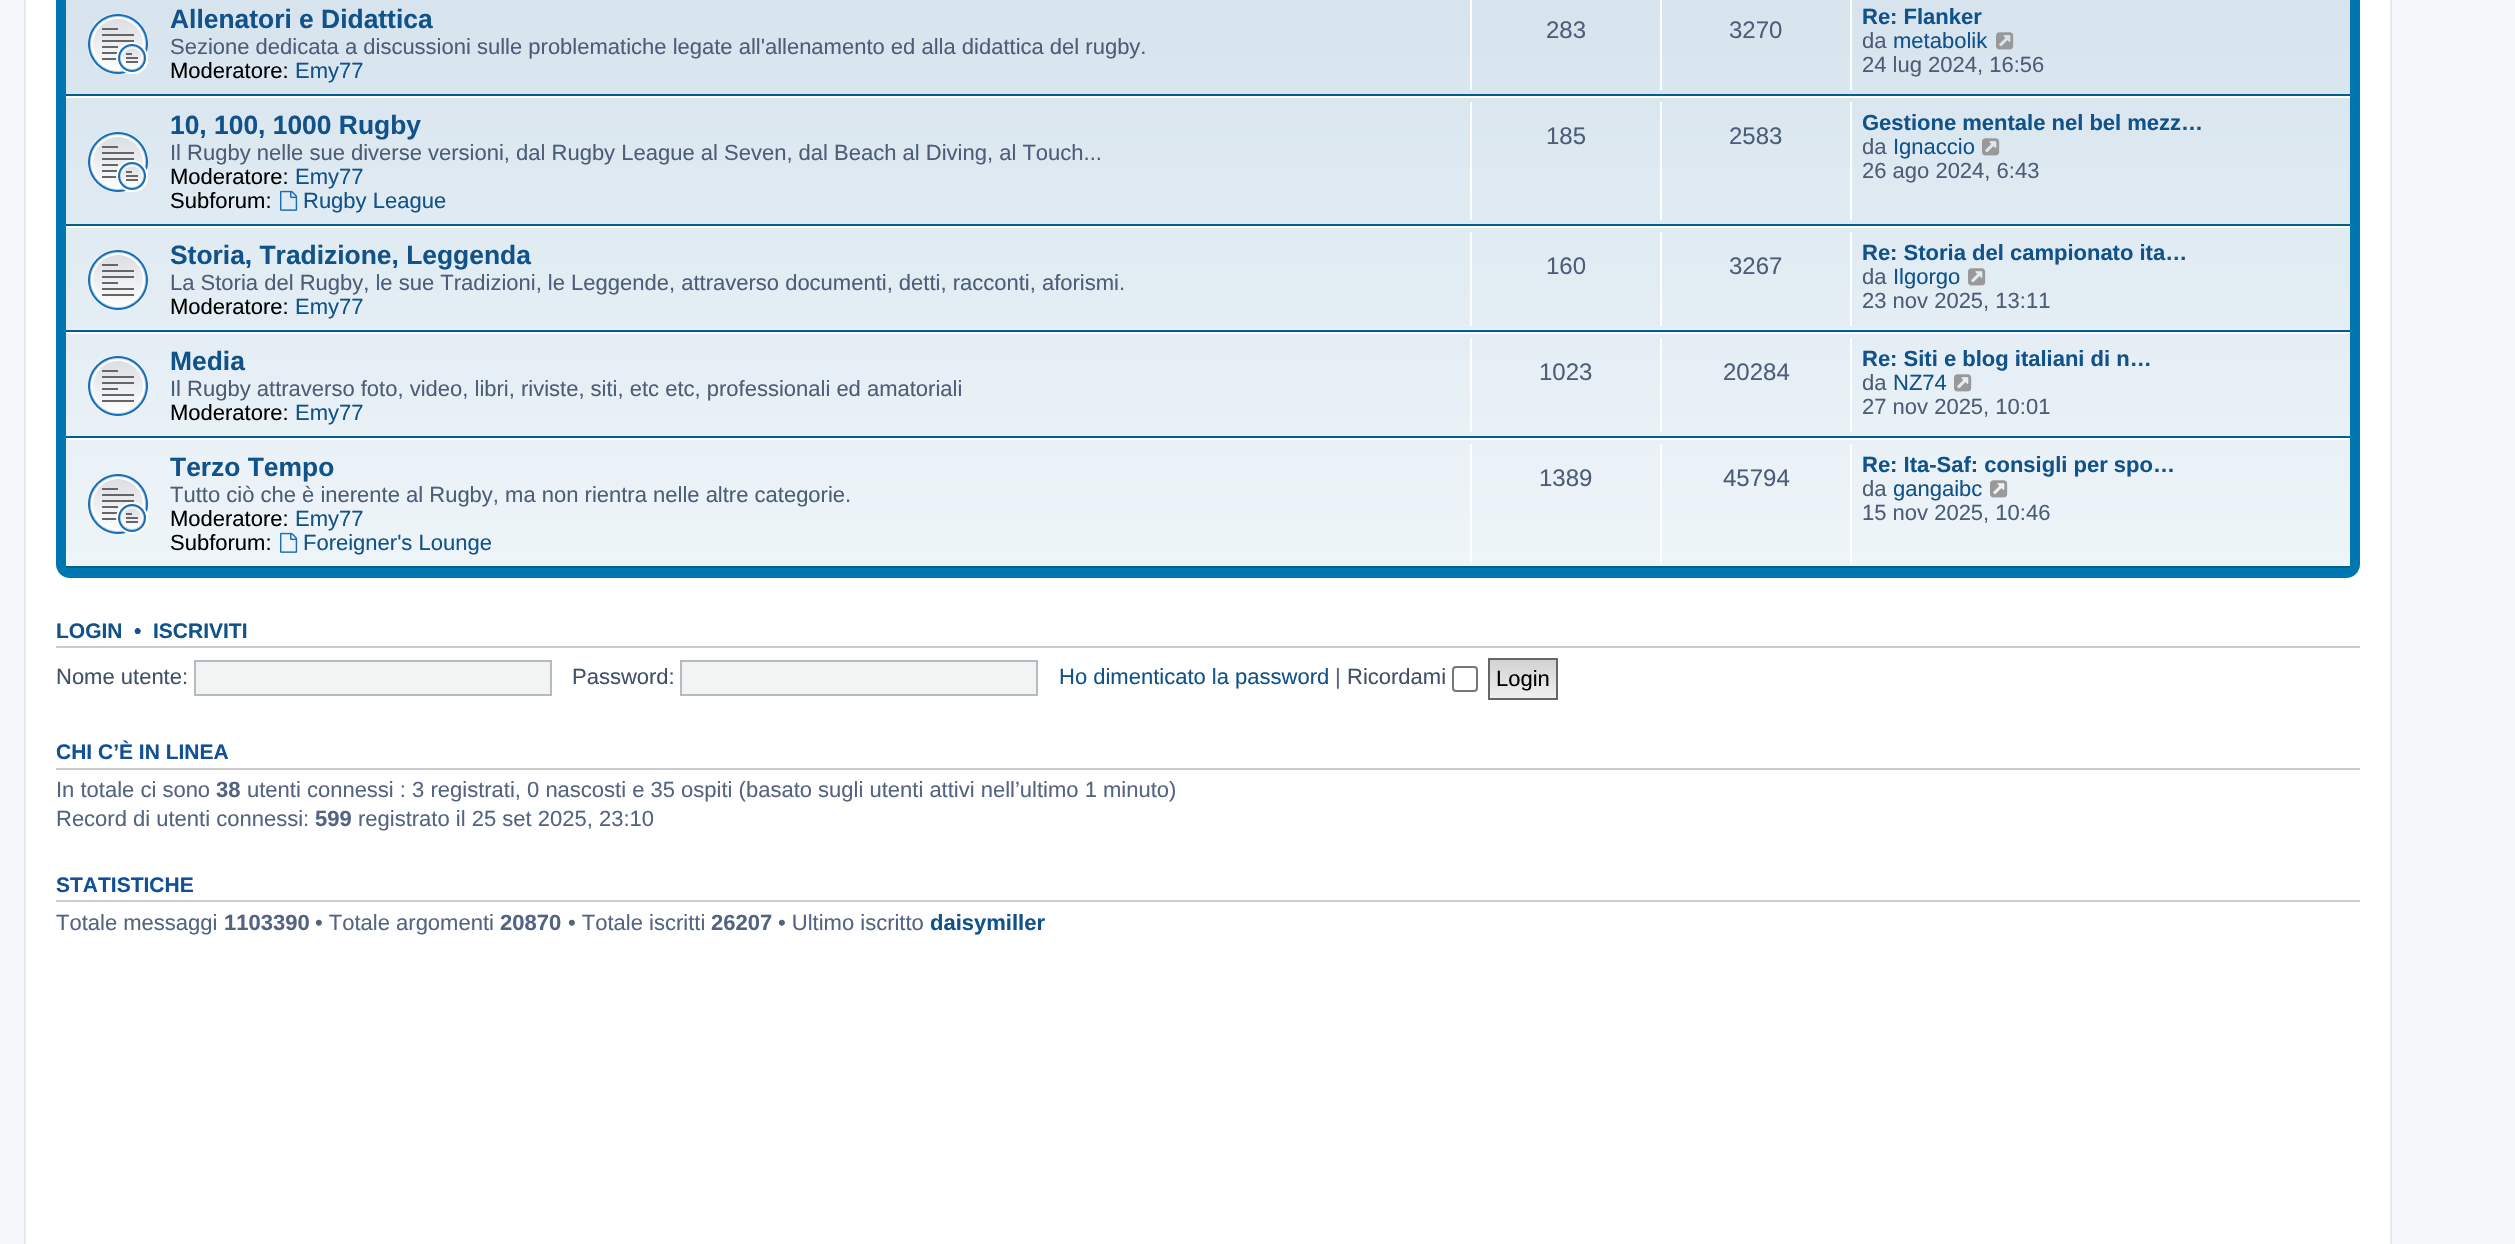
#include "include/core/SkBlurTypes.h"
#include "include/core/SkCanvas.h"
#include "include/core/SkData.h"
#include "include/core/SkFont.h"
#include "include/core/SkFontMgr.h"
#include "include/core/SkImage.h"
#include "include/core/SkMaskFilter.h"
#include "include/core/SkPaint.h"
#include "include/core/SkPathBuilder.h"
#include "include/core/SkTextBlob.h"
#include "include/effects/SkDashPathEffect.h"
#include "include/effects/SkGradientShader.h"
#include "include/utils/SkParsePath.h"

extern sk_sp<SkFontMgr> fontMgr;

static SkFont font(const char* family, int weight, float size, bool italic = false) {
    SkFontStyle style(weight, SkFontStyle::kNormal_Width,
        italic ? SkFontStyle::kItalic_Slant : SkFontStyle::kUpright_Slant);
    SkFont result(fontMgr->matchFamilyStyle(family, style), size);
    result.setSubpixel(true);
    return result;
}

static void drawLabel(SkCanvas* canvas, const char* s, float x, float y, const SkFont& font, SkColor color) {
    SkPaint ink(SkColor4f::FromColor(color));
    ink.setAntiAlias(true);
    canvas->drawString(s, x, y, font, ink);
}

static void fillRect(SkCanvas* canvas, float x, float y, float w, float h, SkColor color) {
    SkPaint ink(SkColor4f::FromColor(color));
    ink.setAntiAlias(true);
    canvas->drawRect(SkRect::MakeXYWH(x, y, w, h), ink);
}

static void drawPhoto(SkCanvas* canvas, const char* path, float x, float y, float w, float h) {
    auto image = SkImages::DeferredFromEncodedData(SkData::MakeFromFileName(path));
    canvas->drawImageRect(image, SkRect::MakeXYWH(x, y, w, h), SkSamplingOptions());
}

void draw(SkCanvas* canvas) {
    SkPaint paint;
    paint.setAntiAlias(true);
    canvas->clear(0xFFF5F7FA);
    paint.setColor(0xFFFFFFFF);
    canvas->drawRect(SkRect::MakeXYWH(25, -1, 2366, 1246), paint);
    paint.setStroke(true);
    paint.setStrokeWidth(2);
    paint.setColor(0xFFE6E9ED);
    canvas->drawRect(SkRect::MakeXYWH(25, -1, 2366, 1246), paint);
    paint.setStroke(false);
    {
        const SkColor colors[] = {0xFF6ACEFF, 0xFF12A3EB, 0xFF0076B1, 0xFF0076B1};
        const float stops[] = {0, 0.01f, 0.24f, 1};
        const SkPoint ends[] = {{1208, -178}, {1208, 578}};
        paint.setShader(SkGradientShader::MakeLinear(ends, colors, stops, 4, SkTileMode::kClamp));
        paint.setAlpha(255);
    }
    canvas->drawRoundRect(SkRect::MakeXYWH(56, -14, 2304, 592), 14, 14, paint);
    {
        const SkColor colors[] = {0xFFD2E0EB, 0xFFEEF5F9};
        const float stops[] = {0, 1};
        const SkPoint ends[] = {{1208, -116}, {1208, 568}};
        paint.setShader(SkGradientShader::MakeLinear(ends, colors, stops, 2, SkTileMode::kClamp));
        paint.setAlpha(255);
    }
    canvas->drawRect(SkRect::MakeXYWH(66, 0, 2284, 566), paint);
    fillRect(canvas, 66, 94, 2284, 2, 0xFF00608F);
    drawPhoto(canvas, "assets/img1.png", 88, 14, 60, 60);
    SkFont font1 = font("Liberation Sans", 700, 26.4f);
    drawLabel(canvas, "Allenatori e Didattica", 170, 28, font1, 0xFF105289);
    SkFont font2 = font("Liberation Sans", 400, 22);
    drawLabel(canvas, "Sezione dedicata a discussioni sulle problematiche legate all'allenamento ed alla didattica del rugby.", 170, 54, font2, 0xFF4C5D77);
    drawLabel(canvas, "Moderatore:", 170, 78, font2, 0xFF000000);
    drawLabel(canvas, "Emy77", 295, 78, font2, 0xFF105289);
    fillRect(canvas, 1470, 0, 2, 90, 0xFFFFFFFF);
    SkFont font3 = font("Liberation Sans", 400, 24);
    drawLabel(canvas, "283", 1546, 38, font3, 0xFF4C5D77);
    fillRect(canvas, 1660, 0, 2, 90, 0xFFFFFFFF);
    drawLabel(canvas, "3270", 1729, 38, font3, 0xFF4C5D77);
    fillRect(canvas, 1850, 0, 2, 90, 0xFFFFFFFF);
    SkFont font4 = font("Liberation Sans", 700, 22);
    drawLabel(canvas, "Re: Flanker", 1862, 24, font4, 0xFF105289);
    drawLabel(canvas, "da", 1862, 48, font2, 0xFF4C5D77);
    drawLabel(canvas, "metabolik", 1893, 48, font2, 0xFF105289);
    drawPhoto(canvas, "assets/img2.png", 1996, 32, 18, 18);
    drawLabel(canvas, "24 lug 2024, 16:56", 1862, 72, font2, 0xFF4C5D77);
    fillRect(canvas, 66, 96, 2284, 2, 0xFFFFFFFF);
    fillRect(canvas, 66, 224, 2284, 2, 0xFF00608F);
    drawPhoto(canvas, "assets/img3.png", 88, 132, 60, 60);
    drawLabel(canvas, "10, 100, 1000 Rugby", 170, 134, font1, 0xFF105289);
    drawLabel(canvas, "Il Rugby nelle sue diverse versioni, dal Rugby League al Seven, dal Beach al Diving, al Touch...", 170, 160, font2, 0xFF4C5D77);
    drawLabel(canvas, "Moderatore:", 170, 184, font2, 0xFF000000);
    drawLabel(canvas, "Emy77", 295, 184, font2, 0xFF105289);
    drawLabel(canvas, "Subforum:", 170, 208, font2, 0xFF000000);
    drawPhoto(canvas, "assets/img4.png", 280, 190, 18, 21);
    drawLabel(canvas, "Rugby League", 303, 208, font2, 0xFF105289);
    fillRect(canvas, 1470, 102, 2, 118, 0xFFFFFFFF);
    drawLabel(canvas, "185", 1546, 144, font3, 0xFF4C5D77);
    fillRect(canvas, 1660, 102, 2, 118, 0xFFFFFFFF);
    drawLabel(canvas, "2583", 1729, 144, font3, 0xFF4C5D77);
    fillRect(canvas, 1850, 102, 2, 118, 0xFFFFFFFF);
    drawLabel(canvas, "Gestione mentale nel bel mezz…", 1862, 130, font4, 0xFF105289);
    drawLabel(canvas, "da", 1862, 154, font2, 0xFF4C5D77);
    drawLabel(canvas, "Ignaccio", 1893, 154, font2, 0xFF105289);
    drawPhoto(canvas, "assets/img5.png", 1982, 138, 18, 18);
    drawLabel(canvas, "26 ago 2024, 6:43", 1862, 178, font2, 0xFF4C5D77);
    fillRect(canvas, 66, 226, 2284, 2, 0xFFFFFFFF);
    fillRect(canvas, 66, 330, 2284, 2, 0xFF00608F);
    drawPhoto(canvas, "assets/img6.png", 88, 250, 60, 60);
    drawLabel(canvas, "Storia, Tradizione, Leggenda", 170, 264, font1, 0xFF105289);
    drawLabel(canvas, "La Storia del Rugby, le sue Tradizioni, le Leggende, attraverso documenti, detti, racconti, aforismi.", 170, 290, font2, 0xFF4C5D77);
    drawLabel(canvas, "Moderatore:", 170, 314, font2, 0xFF000000);
    drawLabel(canvas, "Emy77", 295, 314, font2, 0xFF105289);
    fillRect(canvas, 1470, 232, 2, 94, 0xFFFFFFFF);
    drawLabel(canvas, "160", 1546, 274, font3, 0xFF4C5D77);
    fillRect(canvas, 1660, 232, 2, 94, 0xFFFFFFFF);
    drawLabel(canvas, "3267", 1729, 274, font3, 0xFF4C5D77);
    fillRect(canvas, 1850, 232, 2, 94, 0xFFFFFFFF);
    drawLabel(canvas, "Re: Storia del campionato ita…", 1862, 260, font4, 0xFF105289);
    drawLabel(canvas, "da", 1862, 284, font2, 0xFF4C5D77);
    drawLabel(canvas, "Ilgorgo", 1893, 284, font2, 0xFF105289);
    drawPhoto(canvas, "assets/img7.png", 1968, 268, 18, 18);
    drawLabel(canvas, "23 nov 2025, 13:11", 1862, 308, font2, 0xFF4C5D77);
    fillRect(canvas, 66, 332, 2284, 2, 0xFFFFFFFF);
    fillRect(canvas, 66, 436, 2284, 2, 0xFF00608F);
    drawPhoto(canvas, "assets/img8.png", 88, 356, 60, 60);
    drawLabel(canvas, "Media", 170, 370, font1, 0xFF105289);
    drawLabel(canvas, "Il Rugby attraverso foto, video, libri, riviste, siti, etc etc, professionali ed amatoriali", 170, 396, font2, 0xFF4C5D77);
    drawLabel(canvas, "Moderatore:", 170, 420, font2, 0xFF000000);
    drawLabel(canvas, "Emy77", 295, 420, font2, 0xFF105289);
    fillRect(canvas, 1470, 338, 2, 94, 0xFFFFFFFF);
    drawLabel(canvas, "1023", 1539, 380, font3, 0xFF4C5D77);
    fillRect(canvas, 1660, 338, 2, 94, 0xFFFFFFFF);
    drawLabel(canvas, "20284", 1723, 380, font3, 0xFF4C5D77);
    fillRect(canvas, 1850, 338, 2, 94, 0xFFFFFFFF);
    drawLabel(canvas, "Re: Siti e blog italiani di n…", 1862, 366, font4, 0xFF105289);
    drawLabel(canvas, "da", 1862, 390, font2, 0xFF4C5D77);
    drawLabel(canvas, "NZ74", 1893, 390, font2, 0xFF105289);
    drawPhoto(canvas, "assets/img9.png", 1954, 374, 18, 18);
    drawLabel(canvas, "27 nov 2025, 10:01", 1862, 414, font2, 0xFF4C5D77);
    fillRect(canvas, 66, 438, 2284, 2, 0xFFFFFFFF);
    fillRect(canvas, 66, 566, 2284, 2, 0xFF00608F);
    drawPhoto(canvas, "assets/img10.png", 88, 474, 60, 60);
    drawLabel(canvas, "Terzo Tempo", 170, 476, font1, 0xFF105289);
    drawLabel(canvas, "Tutto ciò che è inerente al Rugby, ma non rientra nelle altre categorie.", 170, 502, font2, 0xFF4C5D77);
    drawLabel(canvas, "Moderatore:", 170, 526, font2, 0xFF000000);
    drawLabel(canvas, "Emy77", 295, 526, font2, 0xFF105289);
    drawLabel(canvas, "Subforum:", 170, 550, font2, 0xFF000000);
    drawPhoto(canvas, "assets/img11.png", 280, 532, 18, 21);
    drawLabel(canvas, "Foreigner's Lounge", 303, 550, font2, 0xFF105289);
    fillRect(canvas, 1470, 444, 2, 118, 0xFFFFFFFF);
    drawLabel(canvas, "1389", 1539, 486, font3, 0xFF4C5D77);
    fillRect(canvas, 1660, 444, 2, 118, 0xFFFFFFFF);
    drawLabel(canvas, "45794", 1723, 486, font3, 0xFF4C5D77);
    fillRect(canvas, 1850, 444, 2, 118, 0xFFFFFFFF);
    drawLabel(canvas, "Re: Ita-Saf: consigli per spo…", 1862, 472, font4, 0xFF105289);
    drawLabel(canvas, "da", 1862, 496, font2, 0xFF4C5D77);
    drawLabel(canvas, "gangaibc", 1893, 496, font2, 0xFF105289);
    drawPhoto(canvas, "assets/img12.png", 1990, 480, 18, 18);
    drawLabel(canvas, "15 nov 2025, 10:46", 1862, 520, font2, 0xFF4C5D77);
    fillRect(canvas, 56, 646, 2304, 2, 0xFFCCCCCC);
    SkFont font5 = font("Liberation Sans", 700, 21);
    drawLabel(canvas, "LOGIN", 56, 638, font5, 0xFF105289);
    drawLabel(canvas, "•", 134, 638, font5, 0xFF115098);
    drawLabel(canvas, "ISCRIVITI", 153, 638, font5, 0xFF105289);
    drawLabel(canvas, "Nome utente:", 56, 684, font2, 0xFF425067);
    paint.setShader(nullptr);
    paint.setColor(0xFFF2F3F3);
    canvas->drawRect(SkRect::MakeXYWH(195, 661, 356, 34), paint);
    paint.setStroke(true);
    paint.setColor(0xFFB4BAC0);
    canvas->drawRect(SkRect::MakeXYWH(195, 661, 356, 34), paint);
    drawLabel(canvas, "Password:", 572, 684, font2, 0xFF425067);
    paint.setStroke(false);
    paint.setColor(0xFFF2F3F3);
    canvas->drawRect(SkRect::MakeXYWH(681, 661, 356, 34), paint);
    paint.setStroke(true);
    paint.setColor(0xFFB4BAC0);
    canvas->drawRect(SkRect::MakeXYWH(681, 661, 356, 34), paint);
    drawLabel(canvas, "Ho dimenticato la password", 1059, 684, font2, 0xFF105289);
    drawLabel(canvas, "|", 1335, 684, font2, 0xFF536482);
    drawLabel(canvas, "Ricordami", 1347, 684, font2, 0xFF425067);
    paint.setColor(0xFF767676);
    canvas->drawRoundRect(SkRect::MakeXYWH(1453, 667, 24, 24), 3, 3, paint);
    paint.setStroke(false);
    {
        const SkColor colors[] = {0xFFD2D2D2, 0xFFEFEFEF};
        const float stops[] = {0, 1};
        const SkPoint ends[] = {{1523, 660}, {1523, 698}};
        paint.setShader(SkGradientShader::MakeLinear(ends, colors, stops, 2, SkTileMode::kClamp));
        paint.setAlpha(255);
    }
    canvas->drawRect(SkRect::MakeXYWH(1490, 660, 66, 38), paint);
    paint.setStroke(true);
    paint.setShader(nullptr);
    paint.setColor(0xFF666666);
    canvas->drawRect(SkRect::MakeXYWH(1489, 659, 68, 40), paint);
    drawLabel(canvas, "Login", 1496, 686, font2, 0xFF000000);
    fillRect(canvas, 56, 768, 2304, 2, 0xFFCCCCCC);
    drawLabel(canvas, "CHI C’È IN LINEA", 56, 759, font5, 0xFF115098);
    drawLabel(canvas, "In totale ci sono", 56, 797, font2, 0xFF536482);
    drawLabel(canvas, "38", 216, 797, font4, 0xFF536482);
    drawLabel(canvas, "utenti connessi : 3 registrati, 0 nascosti e 35 ospiti (basato sugli utenti attivi nell’ultimo 1 minuto)", 247, 797, font2, 0xFF536482);
    drawLabel(canvas, "Record di utenti connessi:", 56, 826, font2, 0xFF536482);
    drawLabel(canvas, "599", 315, 826, font4, 0xFF536482);
    drawLabel(canvas, "registrato il 25 set 2025, 23:10", 358, 826, font2, 0xFF536482);
    fillRect(canvas, 56, 900, 2304, 2, 0xFFCCCCCC);
    drawLabel(canvas, "STATISTICHE", 56, 892, font5, 0xFF115098);
    drawLabel(canvas, "Totale messaggi", 56, 930, font2, 0xFF536482);
    drawLabel(canvas, "1103390", 224, 930, font4, 0xFF536482);
    drawLabel(canvas, "• Totale argomenti", 315, 930, font2, 0xFF536482);
    drawLabel(canvas, "20870", 500, 930, font4, 0xFF536482);
    drawLabel(canvas, "• Totale iscritti", 568, 930, font2, 0xFF536482);
    drawLabel(canvas, "26207", 711, 930, font4, 0xFF536482);
    drawLabel(canvas, "• Ultimo iscritto", 778, 930, font2, 0xFF536482);
    drawLabel(canvas, "daisymiller", 930, 930, font4, 0xFF105289);
}
